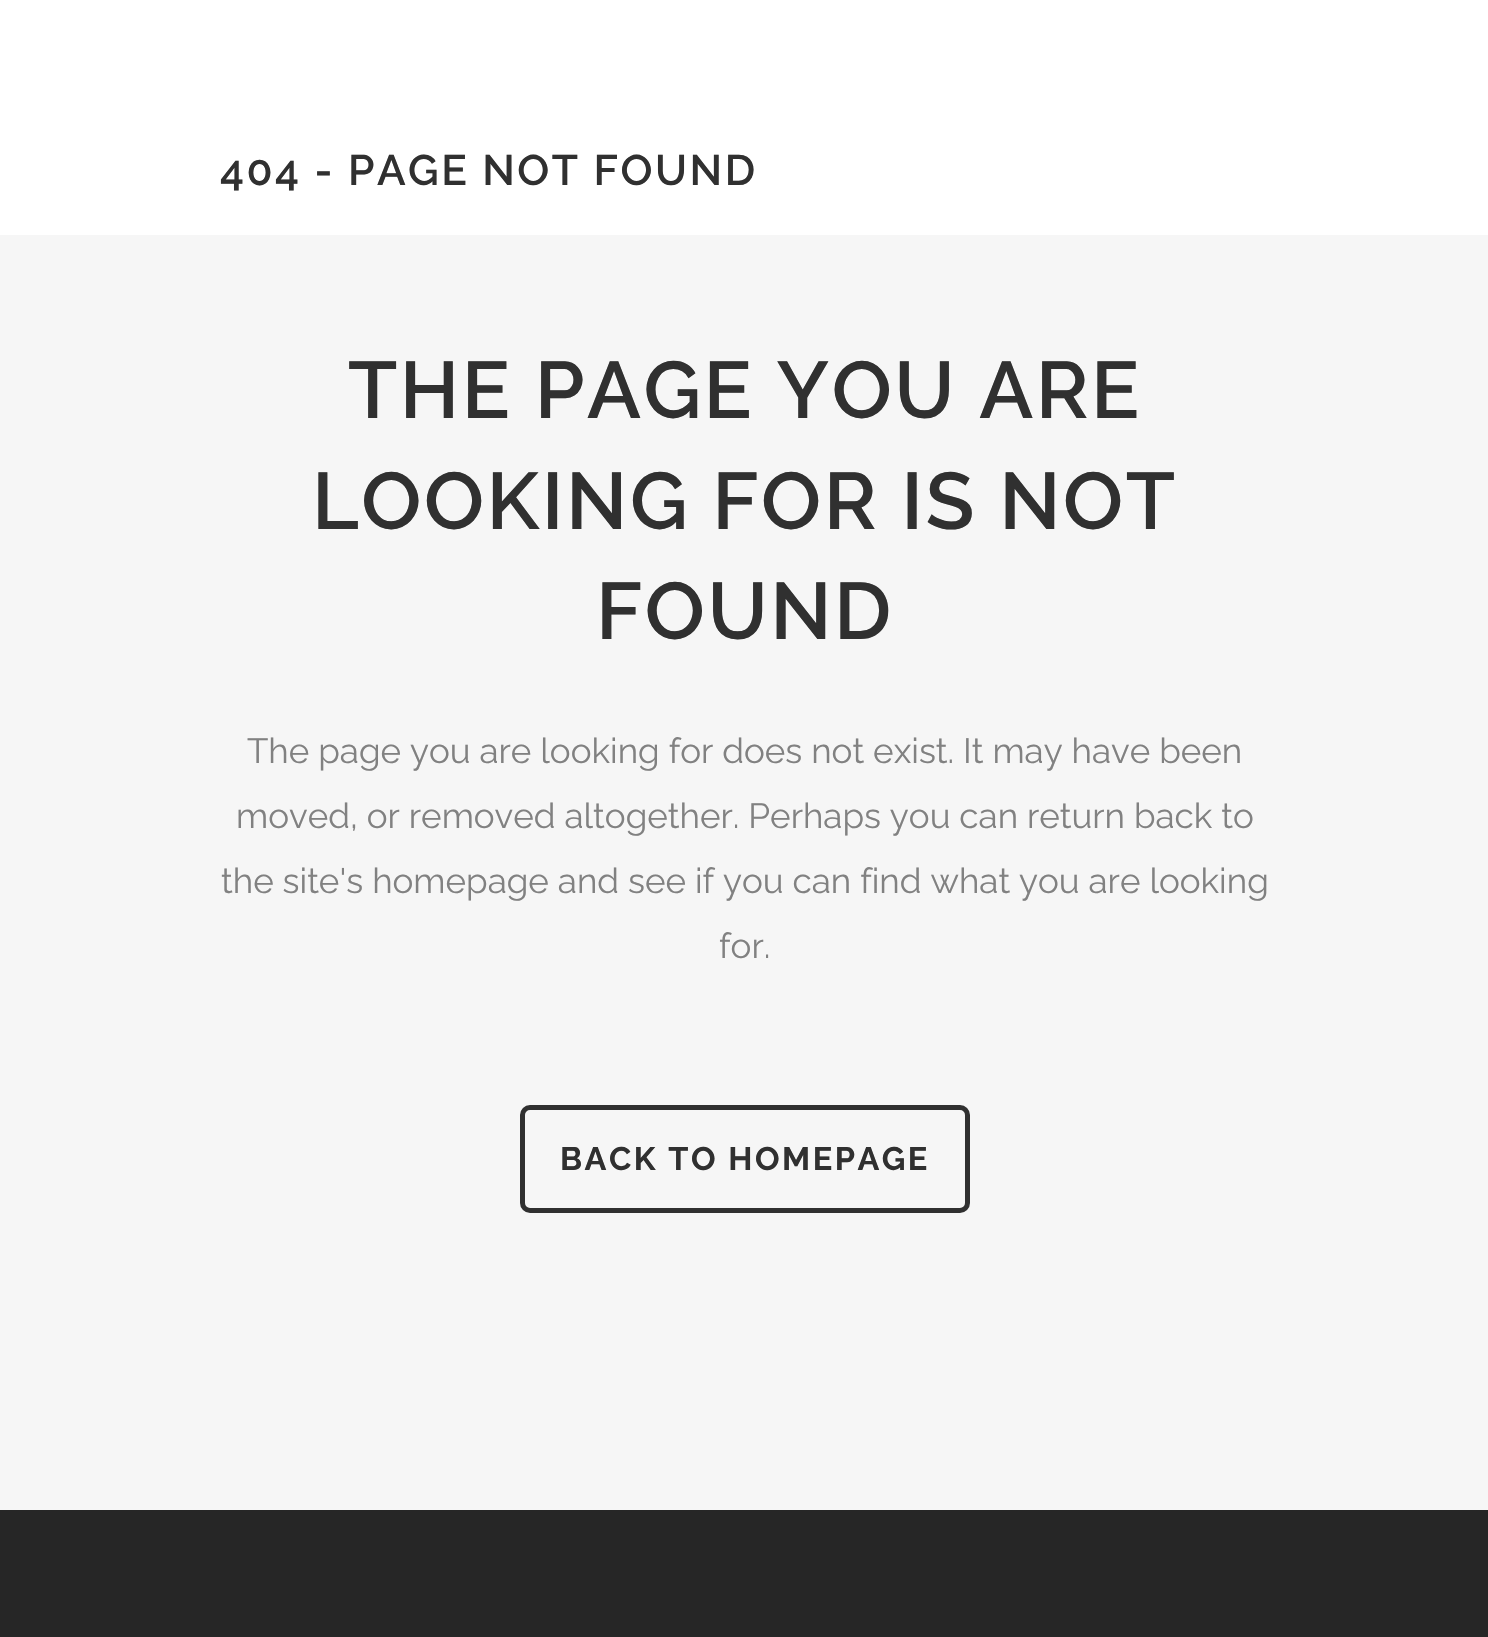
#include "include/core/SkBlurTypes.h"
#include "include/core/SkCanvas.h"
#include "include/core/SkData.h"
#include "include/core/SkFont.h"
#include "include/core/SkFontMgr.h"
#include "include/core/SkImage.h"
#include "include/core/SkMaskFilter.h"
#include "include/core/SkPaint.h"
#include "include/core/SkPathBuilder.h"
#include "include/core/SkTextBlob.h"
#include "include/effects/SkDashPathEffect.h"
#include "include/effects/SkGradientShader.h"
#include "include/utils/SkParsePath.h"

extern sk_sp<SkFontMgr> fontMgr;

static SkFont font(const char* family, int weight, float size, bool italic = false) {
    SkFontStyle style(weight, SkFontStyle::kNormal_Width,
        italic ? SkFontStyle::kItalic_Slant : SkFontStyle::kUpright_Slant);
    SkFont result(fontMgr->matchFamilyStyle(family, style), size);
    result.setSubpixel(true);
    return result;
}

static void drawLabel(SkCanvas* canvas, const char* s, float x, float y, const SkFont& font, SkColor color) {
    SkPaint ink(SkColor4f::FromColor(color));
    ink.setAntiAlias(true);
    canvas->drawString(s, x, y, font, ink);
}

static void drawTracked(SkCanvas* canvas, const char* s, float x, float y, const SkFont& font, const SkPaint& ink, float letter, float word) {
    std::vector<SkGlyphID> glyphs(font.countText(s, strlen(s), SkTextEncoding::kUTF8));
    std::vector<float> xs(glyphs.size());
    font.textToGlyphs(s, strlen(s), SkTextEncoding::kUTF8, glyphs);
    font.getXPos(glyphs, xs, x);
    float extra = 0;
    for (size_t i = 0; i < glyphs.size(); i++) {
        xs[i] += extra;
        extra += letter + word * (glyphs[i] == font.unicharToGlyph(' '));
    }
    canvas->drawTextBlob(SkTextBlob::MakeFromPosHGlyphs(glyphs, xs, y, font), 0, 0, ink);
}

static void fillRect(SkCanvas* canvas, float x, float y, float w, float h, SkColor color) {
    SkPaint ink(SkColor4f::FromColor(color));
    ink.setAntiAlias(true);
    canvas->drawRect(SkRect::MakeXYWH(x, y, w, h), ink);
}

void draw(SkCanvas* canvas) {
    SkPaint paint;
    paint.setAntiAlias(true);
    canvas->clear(0xFFF6F6F6);
    fillRect(canvas, 0, 0, 1488, 235, 0xFFFFFFFF);
    SkFont font1 = font("Raleway", 600, 42.5f);
    paint.setColor(0xFF303030);
    drawTracked(canvas, "404 - PAGE NOT FOUND", 220, 185, font1, paint, 2.5f, 0);
    SkFont font2 = font("Raleway", 600, 80);
    drawTracked(canvas, "THE PAGE YOU ARE", 348, 418, font2, paint, 2.5f, 0);
    drawTracked(canvas, "LOOKING FOR IS NOT", 312, 529, font2, paint, 2.5f, 0);
    drawTracked(canvas, "FOUND", 596, 639, font2, paint, 2.5f, 0);
    SkFont font3 = font("Raleway", 400, 35);
    drawLabel(canvas, "The page you are looking for does not exist. It may have been", 247, 763, font3, 0xFF818181);
    drawLabel(canvas, "moved, or removed altogether. Perhaps you can return back to", 236, 828, font3, 0xFF818181);
    drawLabel(canvas, "the site's homepage and see if you can find what you are looking", 221, 893, font3, 0xFF818181);
    drawLabel(canvas, "for.", 719, 958, font3, 0xFF818181);
    paint.setStroke(true);
    paint.setStrokeWidth(5);
    canvas->drawRoundRect(SkRect::MakeXYWH(522.5f, 1107.5f, 445, 103), 7.5f, 7.5f, paint);
    SkFont font4 = font("Raleway", 700, 32.5f);
    paint.setStroke(false);
    drawTracked(canvas, "BACK TO HOMEPAGE", 560, 1170, font4, paint, 2.5f, 0);
    fillRect(canvas, 0, 1510, 1488, 127, 0xFF262626);
}
